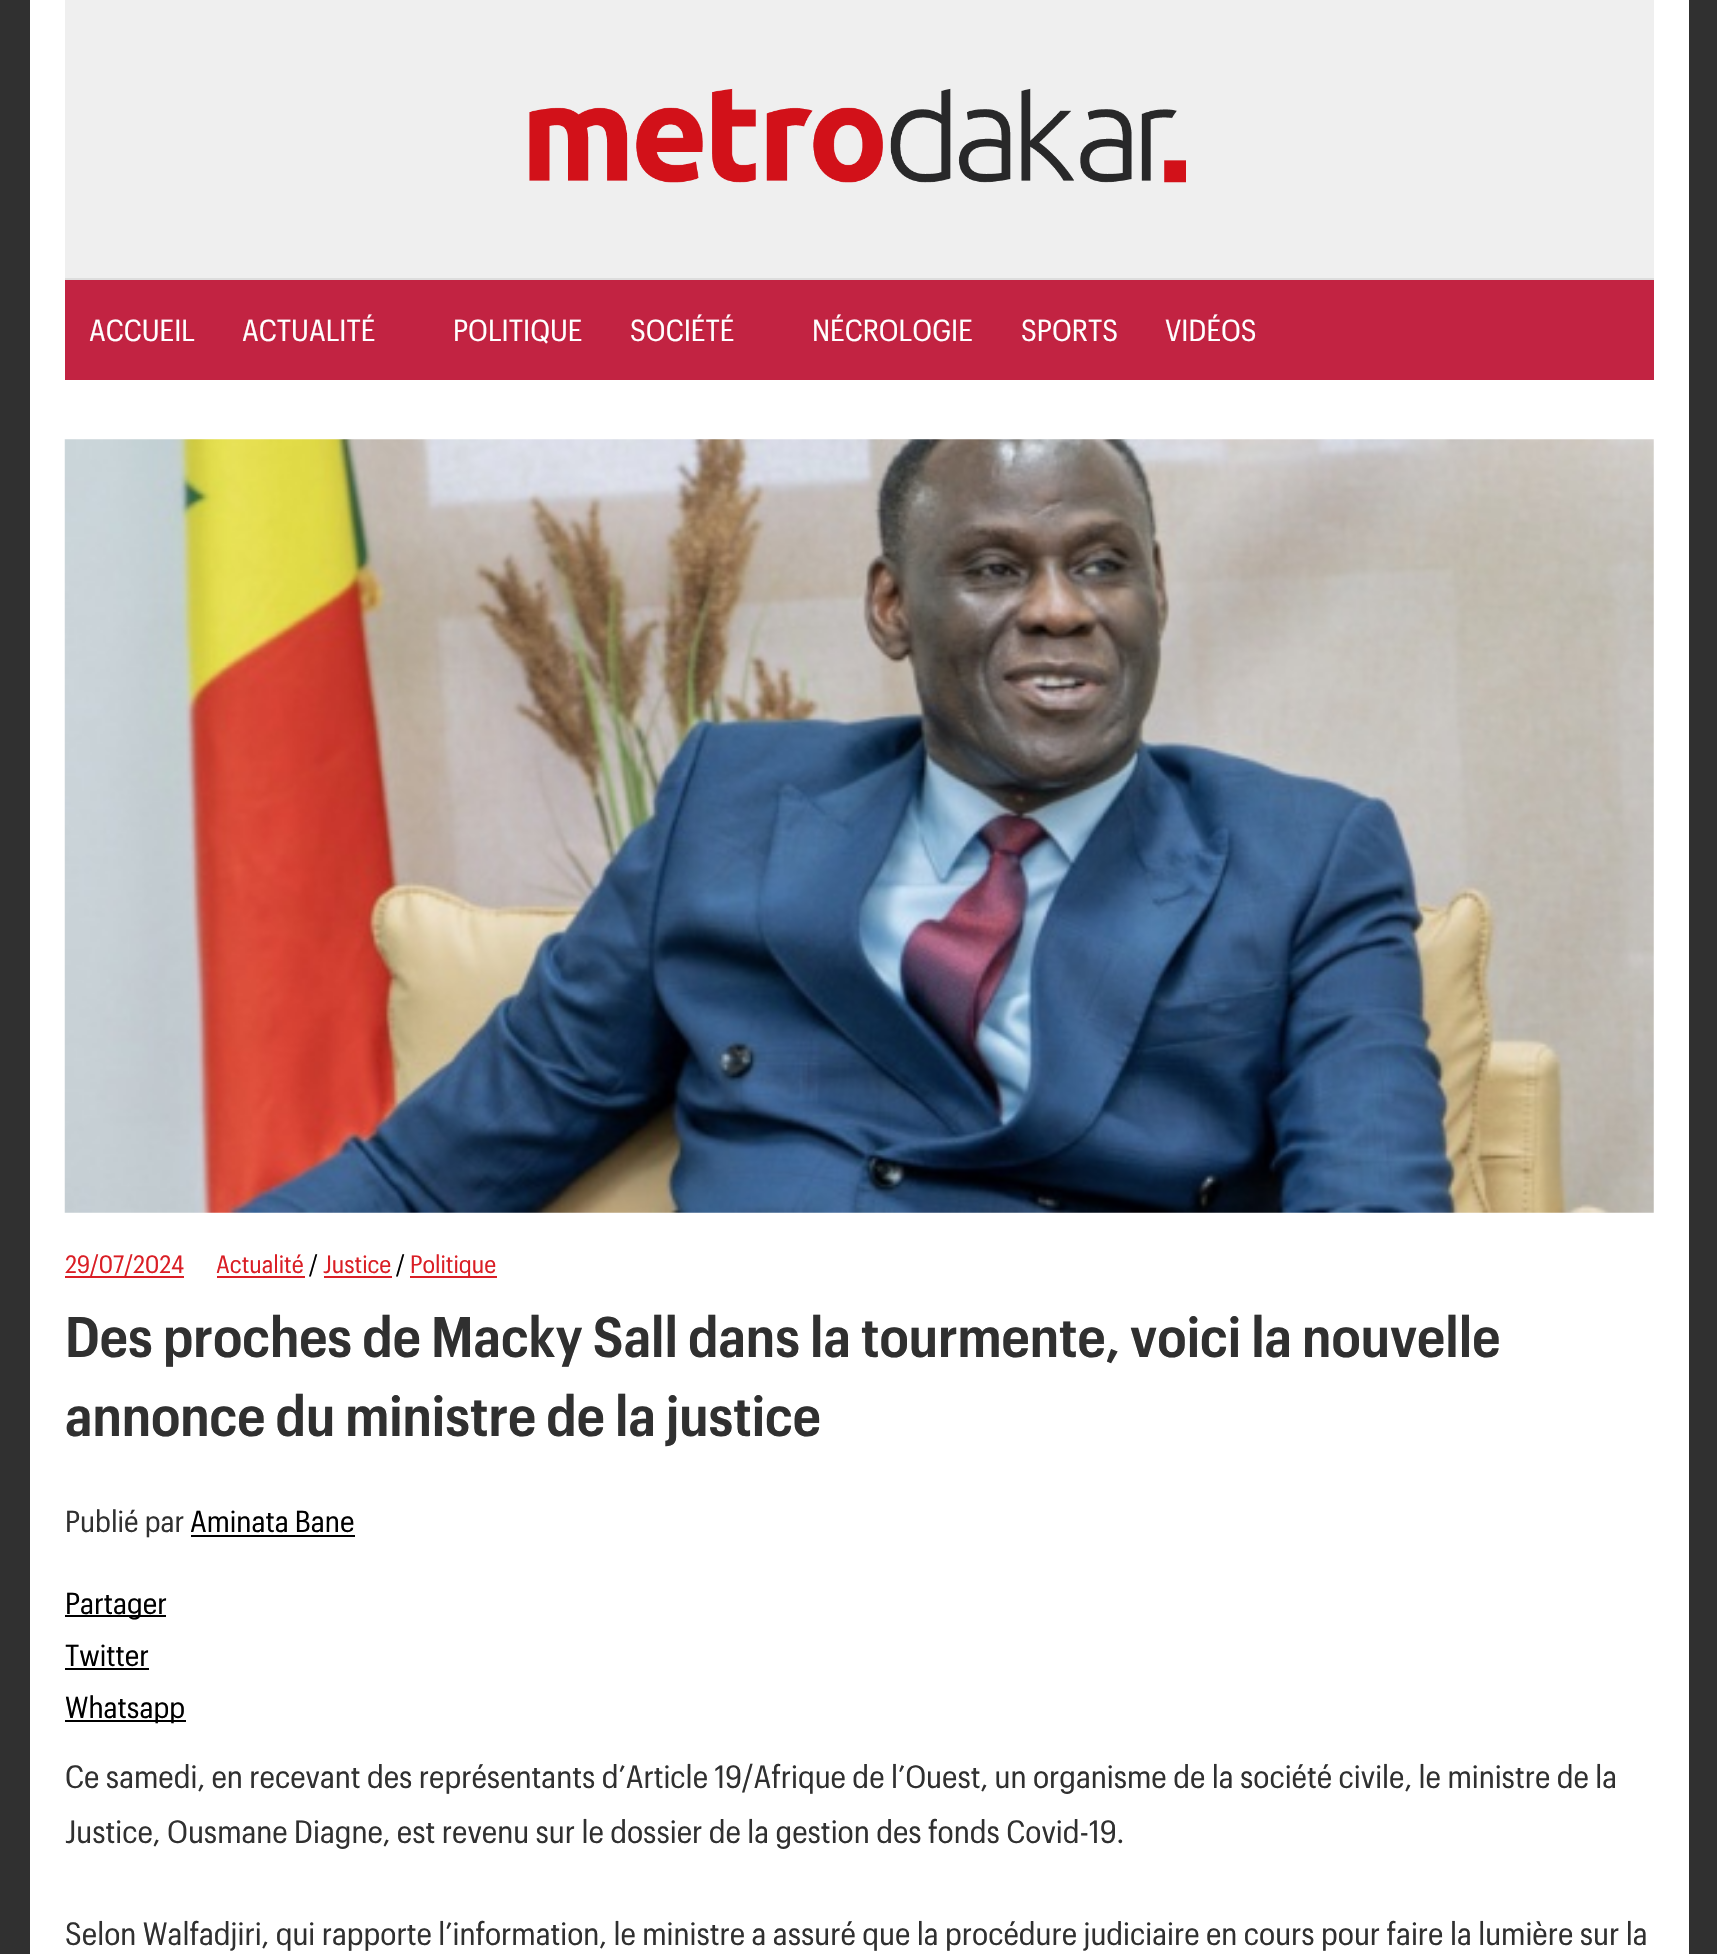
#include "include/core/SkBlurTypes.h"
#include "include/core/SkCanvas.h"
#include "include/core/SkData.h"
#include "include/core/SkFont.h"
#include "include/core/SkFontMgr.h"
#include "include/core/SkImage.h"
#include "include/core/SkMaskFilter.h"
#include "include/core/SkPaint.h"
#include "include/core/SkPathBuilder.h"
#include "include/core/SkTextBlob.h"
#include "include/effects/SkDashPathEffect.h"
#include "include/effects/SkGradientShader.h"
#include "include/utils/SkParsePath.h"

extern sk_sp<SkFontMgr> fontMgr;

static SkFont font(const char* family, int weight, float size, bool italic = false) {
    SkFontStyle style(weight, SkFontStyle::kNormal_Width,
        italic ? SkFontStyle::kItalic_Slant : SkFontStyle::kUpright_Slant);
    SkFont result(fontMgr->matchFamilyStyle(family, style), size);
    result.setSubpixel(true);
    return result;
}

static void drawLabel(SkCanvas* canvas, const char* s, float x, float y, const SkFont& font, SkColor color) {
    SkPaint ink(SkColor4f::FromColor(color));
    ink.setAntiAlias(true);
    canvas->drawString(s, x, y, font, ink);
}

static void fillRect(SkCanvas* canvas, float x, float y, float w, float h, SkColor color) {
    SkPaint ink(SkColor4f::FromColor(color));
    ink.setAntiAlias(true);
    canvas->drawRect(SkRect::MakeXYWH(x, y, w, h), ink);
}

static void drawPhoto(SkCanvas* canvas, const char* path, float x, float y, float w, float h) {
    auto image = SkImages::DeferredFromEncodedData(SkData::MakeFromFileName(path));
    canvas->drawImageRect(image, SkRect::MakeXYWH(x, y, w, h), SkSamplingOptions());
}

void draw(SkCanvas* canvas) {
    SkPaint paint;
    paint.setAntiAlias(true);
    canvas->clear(0xFF303030);
    fillRect(canvas, 30, 0, 1659, 1954, 0xFFFFFFFF);
    fillRect(canvas, 65, 0, 1589, 278, 0xFFEFEFEF);
    drawPhoto(canvas, "assets/img1.png", 529, 88, 657, 95);
    fillRect(canvas, 65, 278, 1589, 2, 0xFFDDDDDD);
    fillRect(canvas, 65, 280, 1589, 100, 0xFFC22342);
    SkFont font1 = font("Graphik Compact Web", 400, 29.75f);
    drawLabel(canvas, "ACCUEIL", 89, 341, font1, 0xFFFFFFFF);
    drawLabel(canvas, "ACTUALITÉ", 242, 341, font1, 0xFFFFFFFF);
    drawLabel(canvas, "POLITIQUE", 453, 341, font1, 0xFFFFFFFF);
    drawLabel(canvas, "SOCIÉTÉ", 630, 341, font1, 0xFFFFFFFF);
    drawLabel(canvas, "NÉCROLOGIE", 812, 341, font1, 0xFFFFFFFF);
    drawLabel(canvas, "SPORTS", 1021, 341, font1, 0xFFFFFFFF);
    drawLabel(canvas, "VIDÉOS", 1165, 341, font1, 0xFFFFFFFF);
    drawPhoto(canvas, "assets/img2.png", 64, 439, 1590, 774);
    fillRect(canvas, 65, 1276, 119, 2, 0xFFDA1E25);
    SkFont font2 = font("Graphik Compact Web", 400, 24.5f);
    drawLabel(canvas, "29/07/2024", 65, 1273, font2, 0xFFDA1E25);
    drawLabel(canvas, "Actualité", 216, 1273, font2, 0xFFDA1E25);
    fillRect(canvas, 217, 1276, 88, 2, 0xFFDA1E25);
    drawLabel(canvas, "/", 309, 1273, font2, 0xFF000000);
    drawLabel(canvas, "Justice", 323, 1273, font2, 0xFFDA1E25);
    fillRect(canvas, 324, 1276, 68, 2, 0xFFDA1E25);
    drawLabel(canvas, "/", 396, 1273, font2, 0xFF000000);
    fillRect(canvas, 410, 1276, 87, 2, 0xFFDA1E25);
    drawLabel(canvas, "Politique", 410, 1273, font2, 0xFFDA1E25);
    SkFont font3 = font("Graphik Compact Web", 600, 56);
    drawLabel(canvas, "Des proches de Macky Sall dans la tourmente, voici la nouvelle", 65, 1357, font3, 0xFF303030);
    drawLabel(canvas, "annonce du ministre de la justice", 65, 1436, font3, 0xFF303030);
    drawLabel(canvas, "Publié par", 65, 1532, font1, 0xFF303030);
    drawLabel(canvas, "Aminata Bane", 190, 1532, font1, 0xFF000000);
    fillRect(canvas, 191, 1535, 164, 2, 0xFF000000);
    fillRect(canvas, 65, 1615, 101, 2, 0xFF000000);
    drawLabel(canvas, "Partager", 65, 1614, font1, 0xFF000000);
    drawLabel(canvas, "Twitter", 65, 1666, font1, 0xFF000000);
    fillRect(canvas, 65, 1668, 84, 2, 0xFF000000);
    fillRect(canvas, 65, 1720, 121, 2, 0xFF000000);
    drawLabel(canvas, "Whatsapp", 65, 1718, font1, 0xFF000000);
    SkFont font4 = font("Graphik Compact Web", 400, 31.5f);
    drawLabel(canvas, "Ce samedi, en recevant des représentants d’Article 19/Afrique de l’Ouest, un organisme de la société civile, le ministre de la", 65, 1788, font4, 0xFF303030);
    drawLabel(canvas, "Justice, Ousmane Diagne, est revenu sur le dossier de la gestion des fonds Covid-19.", 65, 1843, font4, 0xFF303030);
    drawLabel(canvas, "Selon Walfadjiri, qui rapporte l’information, le ministre a assuré que la procédure judiciaire en cours pour faire la lumière sur la", 65, 1945, font4, 0xFF303030);
}
